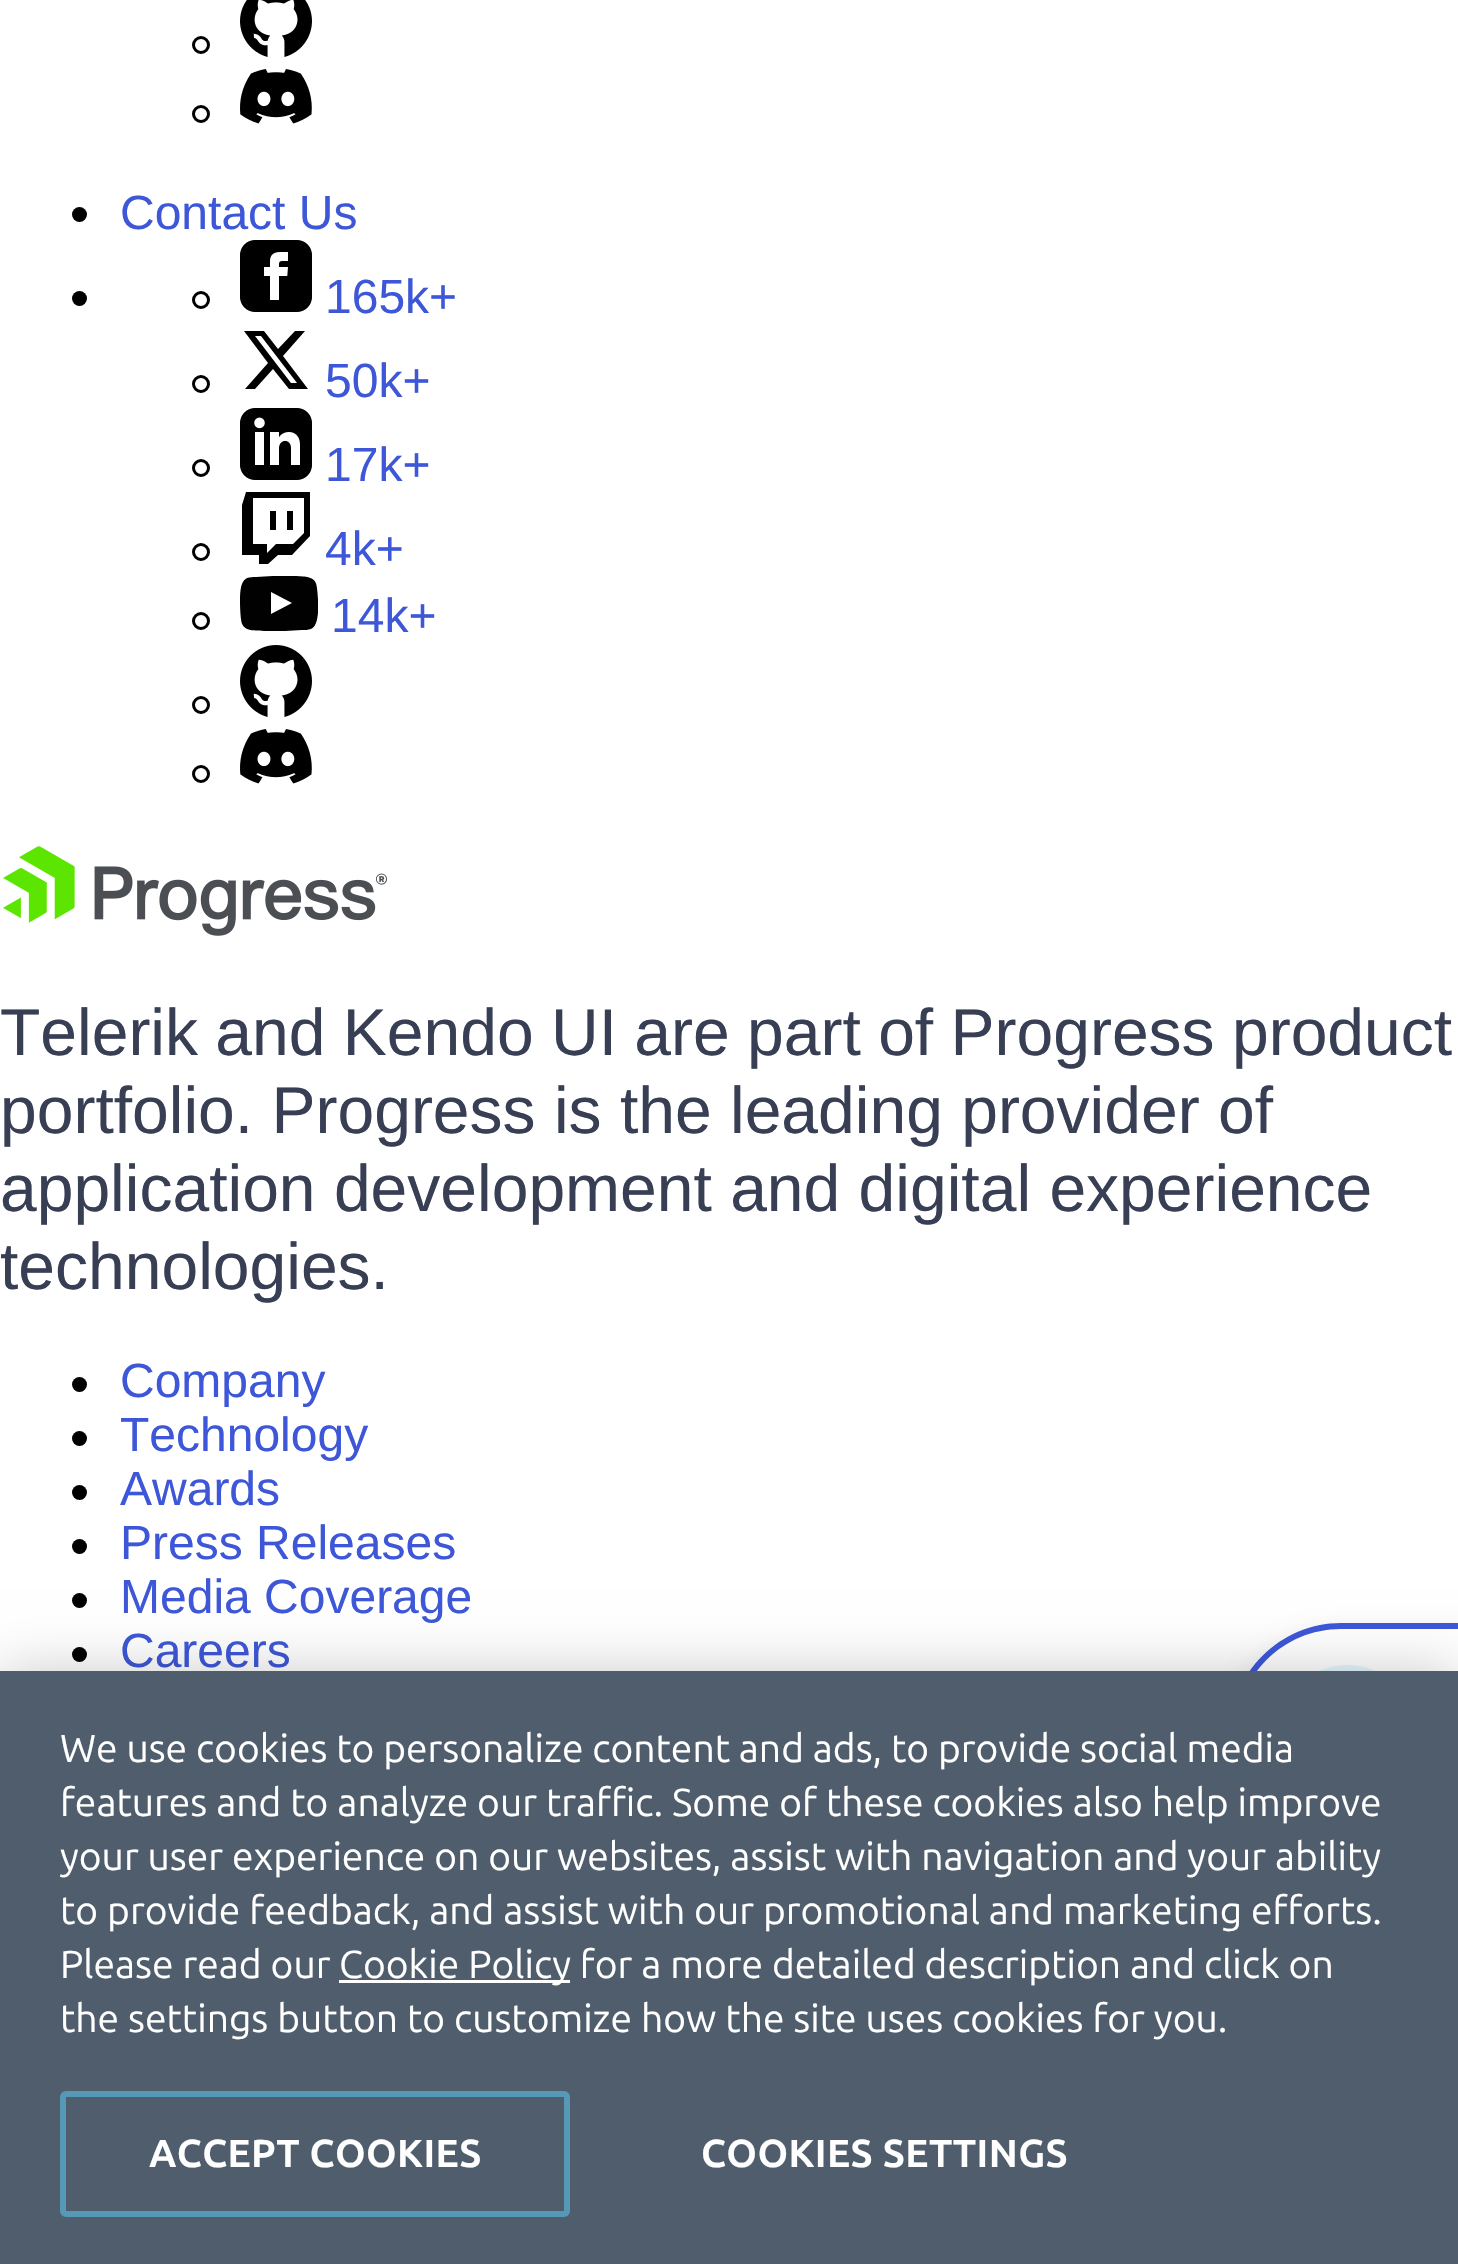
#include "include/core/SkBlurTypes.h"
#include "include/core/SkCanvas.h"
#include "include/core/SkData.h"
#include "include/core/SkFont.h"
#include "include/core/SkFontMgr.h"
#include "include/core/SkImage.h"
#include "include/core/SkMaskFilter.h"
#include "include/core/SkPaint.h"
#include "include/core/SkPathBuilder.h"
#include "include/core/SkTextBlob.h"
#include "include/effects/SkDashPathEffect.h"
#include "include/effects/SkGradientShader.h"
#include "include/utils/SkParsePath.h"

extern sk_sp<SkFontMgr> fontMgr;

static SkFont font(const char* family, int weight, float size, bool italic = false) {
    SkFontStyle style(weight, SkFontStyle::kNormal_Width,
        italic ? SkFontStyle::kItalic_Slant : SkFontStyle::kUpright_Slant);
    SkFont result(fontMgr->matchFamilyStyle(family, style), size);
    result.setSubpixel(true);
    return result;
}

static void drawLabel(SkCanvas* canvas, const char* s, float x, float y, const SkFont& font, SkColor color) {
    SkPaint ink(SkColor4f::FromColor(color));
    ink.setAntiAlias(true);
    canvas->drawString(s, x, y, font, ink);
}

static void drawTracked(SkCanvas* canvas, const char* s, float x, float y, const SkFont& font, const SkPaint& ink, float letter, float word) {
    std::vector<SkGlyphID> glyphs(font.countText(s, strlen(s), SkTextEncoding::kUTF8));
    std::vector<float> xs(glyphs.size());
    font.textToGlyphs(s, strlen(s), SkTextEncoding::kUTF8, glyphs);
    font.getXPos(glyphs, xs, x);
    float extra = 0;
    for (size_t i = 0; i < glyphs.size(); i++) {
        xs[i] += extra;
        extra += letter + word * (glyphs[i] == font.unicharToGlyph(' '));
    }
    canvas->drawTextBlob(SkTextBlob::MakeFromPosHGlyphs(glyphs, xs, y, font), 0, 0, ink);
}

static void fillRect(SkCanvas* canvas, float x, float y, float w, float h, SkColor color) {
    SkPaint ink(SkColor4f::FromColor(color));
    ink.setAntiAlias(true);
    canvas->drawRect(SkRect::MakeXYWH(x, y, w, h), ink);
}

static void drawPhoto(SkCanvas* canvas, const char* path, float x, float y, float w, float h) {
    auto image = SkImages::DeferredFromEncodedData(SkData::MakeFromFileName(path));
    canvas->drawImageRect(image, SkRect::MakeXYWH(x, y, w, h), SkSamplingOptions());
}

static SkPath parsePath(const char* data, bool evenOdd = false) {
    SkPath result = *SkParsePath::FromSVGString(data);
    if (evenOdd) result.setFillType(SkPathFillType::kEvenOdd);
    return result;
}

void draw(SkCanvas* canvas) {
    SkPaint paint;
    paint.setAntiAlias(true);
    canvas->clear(0xFFFFFFFF);
    paint.setStroke(true);
    paint.setStrokeWidth(3);
    paint.setColor(0xFF000000);
    canvas->drawCircle(201, 45, 7.5f, paint);
    drawPhoto(canvas, "assets/img1.png", 240, 0, 72, 57);
    canvas->drawCircle(201, 114, 7.5f, paint);
    drawPhoto(canvas, "assets/img2.png", 240, 69, 72, 55);
    paint.setStroke(false);
    canvas->drawCircle(79.5f, 214.5f, 7.5f, paint);
    SkFont font1 = font("Liberation Sans", 400, 48);
    drawLabel(canvas, "Contact Us", 120, 229, font1, 0xFF3D57D8);
    canvas->drawCircle(79.5f, 298.5f, 7.5f, paint);
    paint.setStroke(true);
    canvas->drawCircle(201, 300, 7.5f, paint);
    drawPhoto(canvas, "assets/img3.png", 240, 240, 72, 72);
    drawLabel(canvas, "165k+", 325, 313, font1, 0xFF3D57D8);
    canvas->drawCircle(201, 384, 7.5f, paint);
    drawLabel(canvas, "50k+", 325, 397, font1, 0xFF3D57D8);
    paint.setStroke(false);
    canvas->drawPath(parsePath("M295 331H305L283 356L308 389H289L273 369L255 389H245L268 363L244 331H264L278 349ZM291 383H297L261 336H255Z"), paint);
    paint.setStroke(true);
    canvas->drawCircle(201, 468, 7.5f, paint);
    drawPhoto(canvas, "assets/img4.png", 240, 408, 72, 72);
    drawLabel(canvas, "17k+", 325, 481, font1, 0xFF3D57D8);
    canvas->drawCircle(201, 552, 7.5f, paint);
    drawLabel(canvas, "4k+", 325, 565, font1, 0xFF3D57D8);
    paint.setStroke(false);
    canvas->drawPath(parsePath("M246 492L242 505V555H259V564H268L278 555H292L310 536V492ZM253 498H304V533L293 544H276L267 553V544H253ZM270 530H276V511H270ZM287 530H293V511H287Z"), paint);
    paint.setStroke(true);
    canvas->drawCircle(201, 621, 7.5f, paint);
    drawLabel(canvas, "14k+", 331, 632, font1, 0xFF3D57D8);
    canvas->save();
    canvas->clipRect(SkRect::MakeXYWH(240, 576, 78, 57));
    paint.setStroke(false);
    paint.setColor(0xFF010101);
    canvas->drawPath(parsePath("M317 588C316 576 307 577 297 576H273L256 577C253 577 250 577 247 578C245 579 243 581 242 584C239 591 240 611 241 619C242 632 253 630 264 631H285L302 630C305 630 308 630 311 629C321 625 318 597 317 588ZM271 614V592L292 603Z"), paint);
    canvas->restore();
    paint.setStroke(true);
    paint.setColor(0xFF000000);
    canvas->drawCircle(201, 705, 7.5f, paint);
    drawPhoto(canvas, "assets/img5.png", 240, 645, 72, 72);
    canvas->drawCircle(201, 774, 7.5f, paint);
    drawPhoto(canvas, "assets/img2.png", 240, 729, 72, 55);
    drawPhoto(canvas, "assets/img6.png", 3, 846, 384, 90);
    SkFont font2 = font("Liberation Sans", 400, 66);
    paint.setStroke(false);
    paint.setColor(0xFF383F55);
    drawTracked(canvas, "Telerik and Kendo UI are part of Progress product", 0, 1055, font2, paint, 0, -1);
    drawLabel(canvas, "portfolio. Progress is the leading provider of", 0, 1133, font2, 0xFF383F55);
    drawLabel(canvas, "application development and digital experience", 0, 1211, font2, 0xFF383F55);
    drawLabel(canvas, "technologies.", 0, 1289, font2, 0xFF383F55);
    paint.setColor(0xFF000000);
    canvas->drawCircle(79.5f, 1384.5f, 7.5f, paint);
    drawLabel(canvas, "Company", 120, 1397, font1, 0xFF3D57D8);
    canvas->drawCircle(79.5f, 1438.5f, 7.5f, paint);
    drawLabel(canvas, "Technology", 120, 1451, font1, 0xFF3D57D8);
    canvas->drawCircle(79.5f, 1492.5f, 7.5f, paint);
    drawLabel(canvas, "Awards", 120, 1505, font1, 0xFF3D57D8);
    canvas->drawCircle(79.5f, 1546.5f, 7.5f, paint);
    drawLabel(canvas, "Press Releases", 120, 1559, font1, 0xFF3D57D8);
    canvas->drawCircle(79.5f, 1600.5f, 7.5f, paint);
    drawLabel(canvas, "Media Coverage", 120, 1613, font1, 0xFF3D57D8);
    canvas->drawCircle(79.5f, 1654.5f, 7.5f, paint);
    drawLabel(canvas, "Careers", 120, 1667, font1, 0xFF3D57D8);
    paint.setColor(0x29000000);
    paint.setMaskFilter(SkMaskFilter::MakeBlur(kNormal_SkBlurStyle, 12));
    canvas->drawRoundRect(SkRect::MakeXYWH(1230, 1635, 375, 222), 111, 111, paint);
    paint.setMaskFilter(nullptr);
    paint.setColor(0xFFFFFFFF);
    canvas->drawPath(parsePath("M1341 1623H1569V1845H1341C1279.5 1845 1230 1795.5 1230 1734C1230 1672.5 1279.5 1623 1341 1623Z"), paint);
    paint.setColor(0xFF3D57D8);
    canvas->drawPath(parsePath("M1341 1623H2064V1845H1341C1280 1845 1230 1795 1230 1734C1230 1673 1280 1623 1341 1623ZM1341 1629H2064V1839H1341C1283 1839 1236 1792 1236 1734C1236 1676 1283 1629 1341 1629Z", true), paint);
    drawPhoto(canvas, "assets/img7.png", 1319, 1665, 57, 6);
    paint.setColor(0x33000000);
    paint.setMaskFilter(SkMaskFilter::MakeBlur(kNormal_SkBlurStyle, 27));
    canvas->drawRect(SkRect::MakeXYWH(0, 1671, 1458, 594), paint);
    paint.setMaskFilter(nullptr);
    fillRect(canvas, 0, 1671, 1458, 593, 0xFF4F5D6C);
    SkFont font3 = font("Ubuntu", 400, 39);
    paint.setColor(0xFFFFFFFF);
    drawTracked(canvas, "We use cookies to personalize content and ads, to provide social media", 60, 1762, font3, paint, 0, -0.1f);
    drawLabel(canvas, "features and to analyze our traffic. Some of these cookies also help improve", 60, 1816, font3, 0xFFFFFFFF);
    drawLabel(canvas, "your user experience on our websites, assist with navigation and your ability", 60, 1870, font3, 0xFFFFFFFF);
    drawLabel(canvas, "to provide feedback, and assist with our promotional and marketing efforts.", 60, 1924, font3, 0xFFFFFFFF);
    drawLabel(canvas, "Please read our", 60, 1978, font3, 0xFFFFFFFF);
    fillRect(canvas, 339, 1980, 231, 3, 0xFFFFFFFF);
    drawLabel(canvas, "Cookie Policy for a more detailed description and click on", 339, 1978, font3, 0xFFFFFFFF);
    drawLabel(canvas, "the settings button to customize how the site uses cookies for you.", 60, 2032, font3, 0xFFFFFFFF);
    paint.setStroke(true);
    paint.setStrokeWidth(6);
    paint.setColor(0xFF5699B6);
    canvas->drawRoundRect(SkRect::MakeXYWH(63, 2094, 504, 120), 3, 3, paint);
    SkFont font4 = font("Ubuntu", 700, 39);
    paint.setStroke(false);
    paint.setColor(0xFFFFFFFF);
    drawTracked(canvas, "ACCEPT COOKIES", 149, 2167, font4, paint, 0.4f, 0);
    drawTracked(canvas, "COOKIES SETTINGS", 701, 2167, font4, paint, 0.4f, 0);
}
